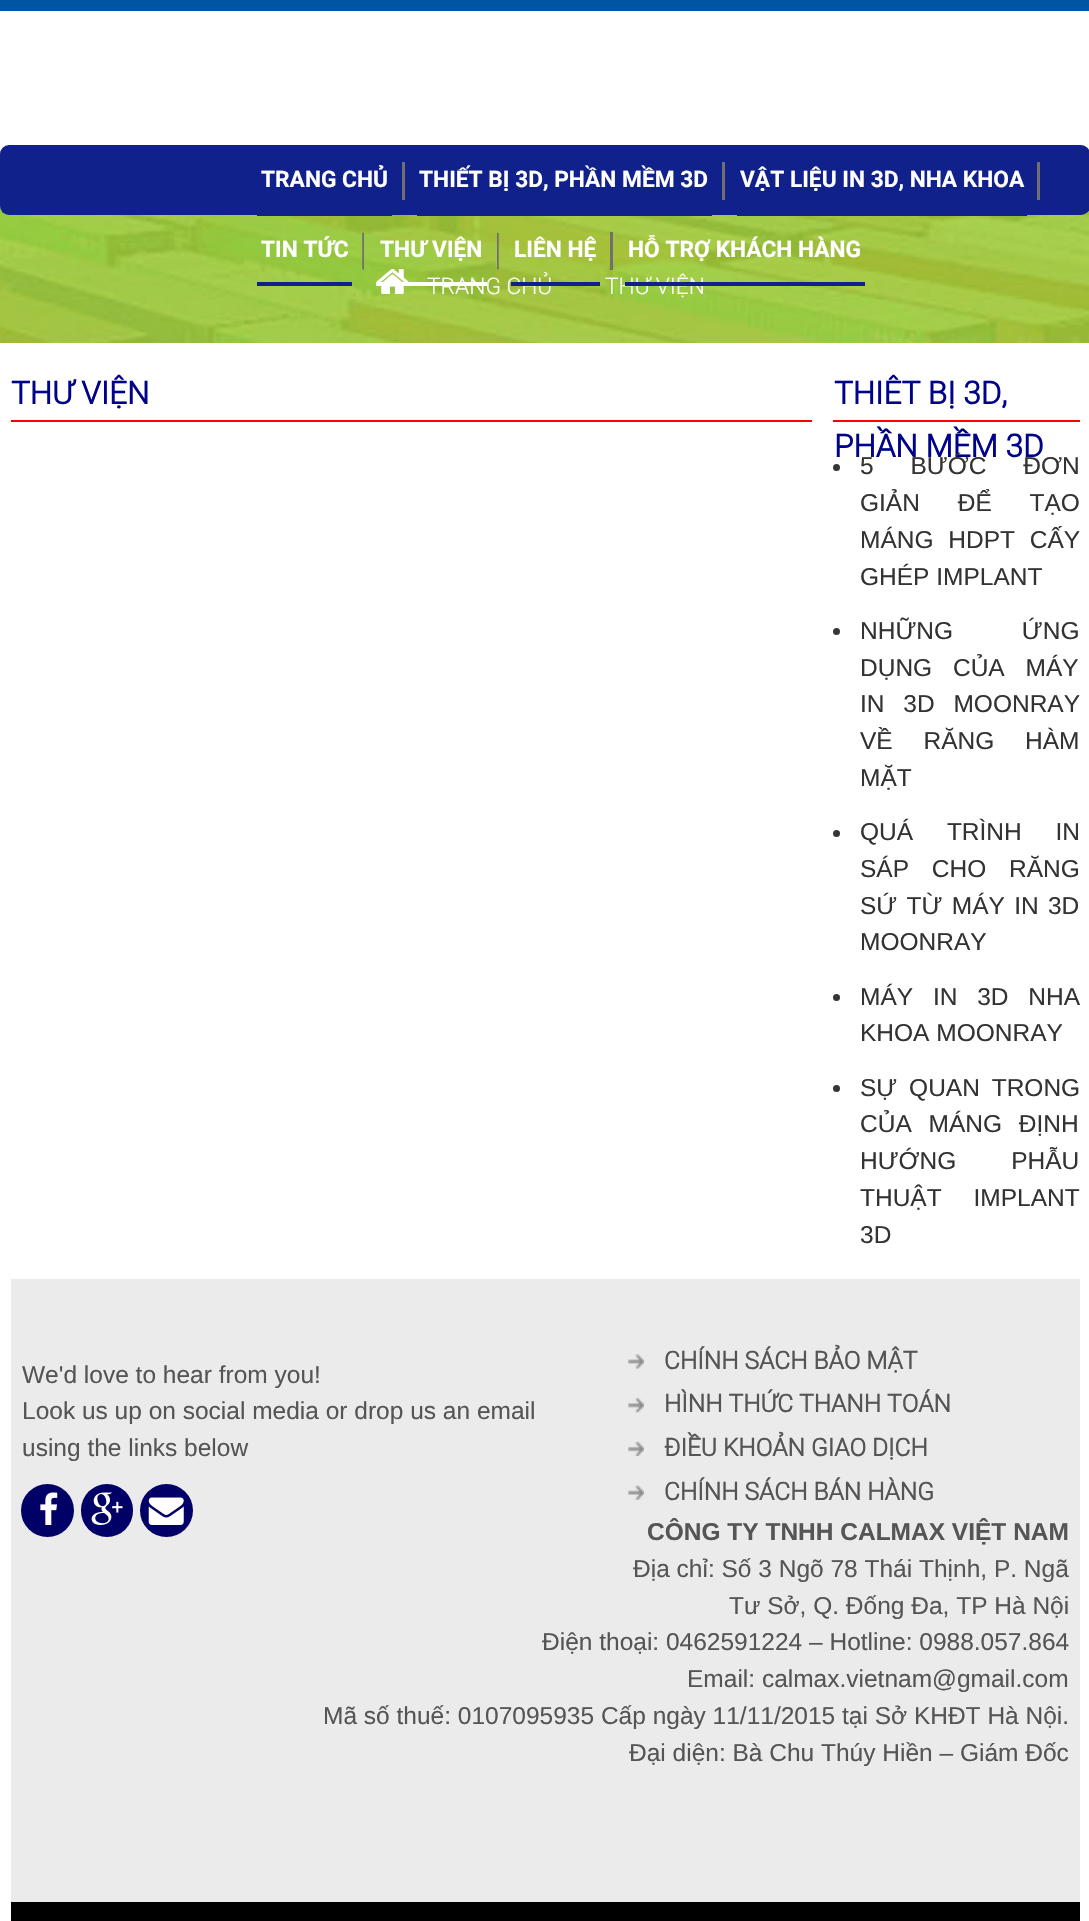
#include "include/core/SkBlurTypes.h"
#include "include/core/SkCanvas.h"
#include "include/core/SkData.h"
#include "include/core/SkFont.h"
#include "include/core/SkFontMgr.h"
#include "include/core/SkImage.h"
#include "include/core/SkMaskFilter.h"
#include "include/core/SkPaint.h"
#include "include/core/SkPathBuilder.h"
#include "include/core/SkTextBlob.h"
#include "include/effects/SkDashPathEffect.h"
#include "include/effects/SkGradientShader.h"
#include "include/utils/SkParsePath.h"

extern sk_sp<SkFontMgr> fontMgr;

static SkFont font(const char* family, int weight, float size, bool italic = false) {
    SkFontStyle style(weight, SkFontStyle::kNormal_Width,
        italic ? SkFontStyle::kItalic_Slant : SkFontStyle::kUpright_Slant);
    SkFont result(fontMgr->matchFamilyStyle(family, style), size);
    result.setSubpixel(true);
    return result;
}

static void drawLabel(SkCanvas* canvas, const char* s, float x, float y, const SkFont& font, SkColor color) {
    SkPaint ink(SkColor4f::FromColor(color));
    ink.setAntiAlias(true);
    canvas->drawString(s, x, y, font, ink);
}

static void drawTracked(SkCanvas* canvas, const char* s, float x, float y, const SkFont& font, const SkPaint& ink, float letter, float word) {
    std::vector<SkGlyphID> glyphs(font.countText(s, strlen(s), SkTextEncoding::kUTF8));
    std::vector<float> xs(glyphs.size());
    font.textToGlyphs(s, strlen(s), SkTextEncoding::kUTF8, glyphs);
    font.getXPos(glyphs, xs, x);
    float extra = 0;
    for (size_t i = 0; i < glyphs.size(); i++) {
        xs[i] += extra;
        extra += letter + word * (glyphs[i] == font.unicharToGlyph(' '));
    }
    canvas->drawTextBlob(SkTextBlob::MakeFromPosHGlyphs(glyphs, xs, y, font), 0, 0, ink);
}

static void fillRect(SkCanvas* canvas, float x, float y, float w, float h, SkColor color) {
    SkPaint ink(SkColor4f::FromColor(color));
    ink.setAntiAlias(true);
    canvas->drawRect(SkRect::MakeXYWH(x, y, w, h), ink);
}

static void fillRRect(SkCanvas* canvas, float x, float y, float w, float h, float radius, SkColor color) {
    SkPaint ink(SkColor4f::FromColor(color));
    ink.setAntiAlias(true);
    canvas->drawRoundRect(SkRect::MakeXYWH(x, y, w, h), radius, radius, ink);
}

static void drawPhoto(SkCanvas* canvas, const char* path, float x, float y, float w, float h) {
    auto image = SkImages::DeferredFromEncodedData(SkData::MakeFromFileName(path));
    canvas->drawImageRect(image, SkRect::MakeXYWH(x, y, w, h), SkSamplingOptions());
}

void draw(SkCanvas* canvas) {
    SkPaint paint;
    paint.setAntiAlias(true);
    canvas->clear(0xFFFFFFFF);
    fillRect(canvas, 0, 0, 1089, 11, 0xFF0055A2);
    drawPhoto(canvas, "assets/img3.png", 0, 206, 1089, 137);
    fillRRect(canvas, 0, 145, 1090, 70, 9, 0xFF10218B);
    fillRect(canvas, 402, 162, 3, 38, 0xFF707070);
    fillRect(canvas, 257, 215, 135, 1, 0xFF10218B);
    SkFont font1 = font("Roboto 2", 700, 22.75f);
    drawLabel(canvas, "TRANG CHỦ", 261, 187, font1, 0xFFFFFFFF);
    fillRect(canvas, 722, 162, 3, 38, 0xFF707070);
    fillRect(canvas, 417, 215, 295, 1, 0xFF10218B);
    drawLabel(canvas, "THIẾT BỊ 3D, PHẦN MỀM 3D", 419, 187, font1, 0xFFFFFFFF);
    fillRect(canvas, 1037, 162, 3, 38, 0xFF707070);
    fillRect(canvas, 737, 215, 290, 1, 0xFF10218B);
    drawLabel(canvas, "VẬT LIỆU IN 3D, NHA KHOA", 740, 187, font1, 0xFFFFFFFF);
    drawPhoto(canvas, "assets/img1.png", 362, 232, 2, 38);
    fillRect(canvas, 257, 282, 95, 4, 0xFF10218B);
    drawLabel(canvas, "TIN TỨC", 261, 257, font1, 0xFFFFFFFF);
    drawPhoto(canvas, "assets/img2.png", 497, 232, 2, 38);
    drawPhoto(canvas, "assets/img4.png", 376, 268, 33, 26);
    fillRect(canvas, 376, 282, 111, 4, 0xFFFFFFFF);
    drawLabel(canvas, "THƯ VIỆN", 380, 257, font1, 0xFFFFFFFF);
    fillRect(canvas, 610, 232, 3, 38, 0xFF707070);
    SkFont font2 = font("Roboto", 300, 22.75f);
    drawLabel(canvas, "TRANG CHỦ", 427, 294, font2, 0xFFFFFFFF);
    fillRect(canvas, 511, 282, 89, 4, 0xFF10218B);
    drawLabel(canvas, "LIÊN HỆ", 514, 257, font1, 0xFFFFFFFF);
    drawLabel(canvas, "THƯ VIỆN", 605, 294, font2, 0xFFFFFFFF);
    fillRect(canvas, 625, 282, 240, 4, 0xFF10218B);
    drawLabel(canvas, "HỖ TRỢ KHÁCH HÀNG", 628, 257, font1, 0xFFFFFFFF);
    fillRect(canvas, 11, 420, 801, 2, 0xFFFF0000);
    SkFont font3 = font("Roboto", 700, 31.5f);
    drawLabel(canvas, "THƯ VIỆN", 11, 404, font3, 0xFF00038A);
    fillRect(canvas, 833, 420, 247, 2, 0xFFFF0000);
    drawLabel(canvas, "THIÊT BỊ 3D,", 834, 404, font3, 0xFF00038A);
    drawLabel(canvas, "PHẦN MỀM 3D", 834, 457, font3, 0xFF00038A);
    paint.setColor(0xFF363636);
    canvas->drawCircle(836.5f, 467.5f, 3.5f, paint);
    SkFont font4 = font("Liberation Sans", 400, 24.5f);
    paint.setColor(0xFF333333);
    drawTracked(canvas, "5 BƯỚC ĐƠN", 860, 474, font4, paint, 0, 30);
    drawTracked(canvas, "GIẢN ĐỂ TẠO", 860, 511, font4, paint, 0, 31);
    drawTracked(canvas, "MÁNG HDPT CẤY", 860, 548, font4, paint, 0, 8);
    drawLabel(canvas, "GHÉP IMPLANT", 860, 585, font4, 0xFF333333);
    paint.setColor(0xFF363636);
    canvas->drawCircle(836.5f, 631.5f, 3.5f, paint);
    paint.setColor(0xFF333333);
    drawTracked(canvas, "NHỮNG ỨNG", 860, 639, font4, paint, 0, 62);
    drawTracked(canvas, "DỤNG CỦA MÁY", 860, 676, font4, paint, 0, 14);
    drawTracked(canvas, "IN 3D MOONRAY", 860, 712, font4, paint, 0, 12);
    drawTracked(canvas, "VỀ RĂNG HÀM", 860, 749, font4, paint, 0, 24);
    drawLabel(canvas, "MẶT", 860, 786, font4, 0xFF333333);
    paint.setColor(0xFF363636);
    canvas->drawCircle(836.5f, 833.5f, 3.5f, paint);
    paint.setColor(0xFF333333);
    drawTracked(canvas, "QUÁ TRÌNH IN", 860, 840, font4, paint, 0, 27);
    drawTracked(canvas, "SÁP CHO RĂNG", 860, 877, font4, paint, 0, 16);
    drawTracked(canvas, "SỨ TỪ MÁY IN 3D", 860, 914, font4, paint, 0, 2.5f);
    drawLabel(canvas, "MOONRAY", 860, 950, font4, 0xFF333333);
    paint.setColor(0xFF363636);
    canvas->drawCircle(836.5f, 997.5f, 3.5f, paint);
    paint.setColor(0xFF333333);
    drawTracked(canvas, "MÁY IN 3D NHA", 860, 1005, font4, paint, 0, 13);
    drawLabel(canvas, "KHOA MOONRAY", 860, 1041, font4, 0xFF333333);
    paint.setColor(0xFF363636);
    canvas->drawCircle(836.5f, 1088.5f, 3.5f, paint);
    paint.setColor(0xFF333333);
    drawTracked(canvas, "SỰ QUAN TRONG", 860, 1096, font4, paint, 0, 5);
    drawTracked(canvas, "CỦA MÁNG ĐỊNH", 860, 1132, font4, paint, 0, 10);
    drawTracked(canvas, "HƯỚNG PHẪU", 860, 1169, font4, paint, 0, 48);
    drawTracked(canvas, "THUẬT IMPLANT", 860, 1206, font4, paint, 0, 25);
    drawLabel(canvas, "3D", 860, 1243, font4, 0xFF333333);
    fillRect(canvas, 11, 1279, 1069, 623, 0xFFEBEBEB);
    drawLabel(canvas, "We'd love to hear from you!", 22, 1383, font4, 0xFF555555);
    drawLabel(canvas, "Look us up on social media or drop us an email", 22, 1419, font4, 0xFF555555);
    drawLabel(canvas, "using the links below", 22, 1456, font4, 0xFF555555);
    paint.setColor(0xFF000066);
    canvas->drawCircle(47.5f, 1510.5f, 26.5f, paint);
    drawPhoto(canvas, "assets/img5.png", 40, 1492, 18, 33);
    fillRRect(canvas, 81, 1484, 52, 53, 26, 0xFF000066);
    drawPhoto(canvas, "assets/img6.png", 91, 1492, 32, 33);
    canvas->drawCircle(166.5f, 1510.5f, 26.5f, paint);
    drawPhoto(canvas, "assets/img7.png", 148, 1497, 36, 28);
    drawPhoto(canvas, "assets/img8.png", 628, 1354, 16, 15);
    SkFont font5 = font("Roboto", 700, 24.5f);
    drawLabel(canvas, "CHÍNH SÁCH BẢO MẬT", 664, 1369, font5, 0xFF555555);
    drawPhoto(canvas, "assets/img9.png", 628, 1398, 16, 15);
    drawLabel(canvas, "HÌNH THỨC THANH TOÁN", 664, 1412, font5, 0xFF555555);
    drawPhoto(canvas, "assets/img10.png", 628, 1442, 16, 14);
    drawLabel(canvas, "ĐIỀU KHOẢN GIAO DỊCH", 664, 1456, font5, 0xFF555555);
    drawPhoto(canvas, "assets/img11.png", 628, 1485, 16, 15);
    drawLabel(canvas, "CHÍNH SÁCH BÁN HÀNG", 664, 1500, font5, 0xFF555555);
    SkFont font6 = font("Liberation Sans", 700, 24.5f);
    drawLabel(canvas, "CÔNG TY TNHH CALMAX VIỆT NAM", 647, 1540, font6, 0xFF555555);
    drawLabel(canvas, "Địa chỉ: Số 3 Ngõ 78 Thái Thịnh, P. Ngã", 633, 1577, font4, 0xFF555555);
    drawLabel(canvas, "Tư Sở, Q. Đống Đa, TP Hà Nội", 729, 1614, font4, 0xFF555555);
    drawLabel(canvas, "Điện thoại: 0462591224 – Hotline: 0988.057.864", 542, 1650, font4, 0xFF555555);
    drawLabel(canvas, "Email: calmax.vietnam@gmail.com", 687, 1687, font4, 0xFF555555);
    drawLabel(canvas, "Mã số thuế: 0107095935 Cấp ngày 11/11/2015 tại Sở KHĐT Hà Nội.", 323, 1724, font4, 0xFF555555);
    drawLabel(canvas, "Đại diện: Bà Chu Thúy Hiền – Giám Đốc", 629, 1761, font4, 0xFF555555);
    fillRect(canvas, 11, 1902, 1069, 19, 0xFF000000);
}
